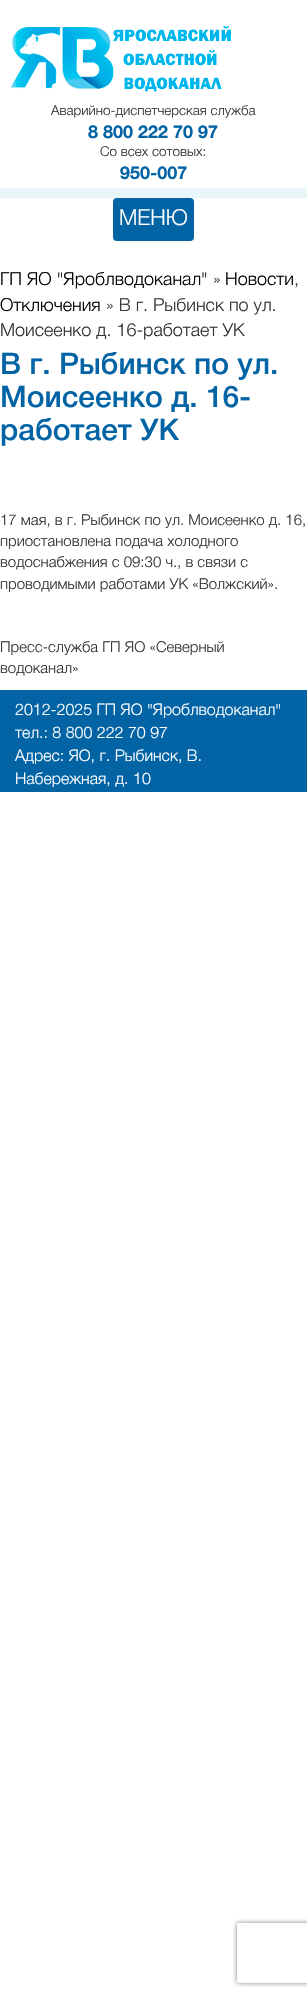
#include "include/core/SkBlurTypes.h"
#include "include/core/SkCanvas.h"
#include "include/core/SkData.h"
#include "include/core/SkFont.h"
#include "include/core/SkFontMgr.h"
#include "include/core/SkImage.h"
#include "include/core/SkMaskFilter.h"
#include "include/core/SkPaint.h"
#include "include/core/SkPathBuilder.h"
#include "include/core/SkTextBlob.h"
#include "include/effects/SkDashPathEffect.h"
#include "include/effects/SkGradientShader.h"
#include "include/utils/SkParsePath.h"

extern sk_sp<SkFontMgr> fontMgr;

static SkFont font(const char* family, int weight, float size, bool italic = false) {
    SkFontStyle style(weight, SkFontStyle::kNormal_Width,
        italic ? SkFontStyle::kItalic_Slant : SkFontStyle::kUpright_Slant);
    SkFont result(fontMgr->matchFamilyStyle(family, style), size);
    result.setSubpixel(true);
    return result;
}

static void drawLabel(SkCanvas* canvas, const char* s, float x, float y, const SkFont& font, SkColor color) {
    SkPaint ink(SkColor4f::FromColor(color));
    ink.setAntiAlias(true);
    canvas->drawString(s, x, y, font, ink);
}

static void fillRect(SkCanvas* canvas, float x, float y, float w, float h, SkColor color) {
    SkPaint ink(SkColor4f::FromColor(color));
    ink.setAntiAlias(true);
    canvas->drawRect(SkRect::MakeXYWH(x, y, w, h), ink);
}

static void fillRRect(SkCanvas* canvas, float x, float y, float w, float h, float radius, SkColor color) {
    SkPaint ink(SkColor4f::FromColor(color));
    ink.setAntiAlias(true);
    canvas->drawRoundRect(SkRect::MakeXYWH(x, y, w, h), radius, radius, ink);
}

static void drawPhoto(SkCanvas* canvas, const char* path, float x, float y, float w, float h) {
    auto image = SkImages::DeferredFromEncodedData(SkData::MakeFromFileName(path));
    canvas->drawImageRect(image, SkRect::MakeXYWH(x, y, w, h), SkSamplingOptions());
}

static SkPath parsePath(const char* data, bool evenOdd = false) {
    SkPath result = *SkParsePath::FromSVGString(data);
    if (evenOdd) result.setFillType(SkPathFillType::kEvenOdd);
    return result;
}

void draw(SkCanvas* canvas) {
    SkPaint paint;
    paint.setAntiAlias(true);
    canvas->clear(0xFFFFFFFF);
    drawPhoto(canvas, "assets/img1.png", 10, 26, 221, 66);
    SkFont font1 = font("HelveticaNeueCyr", 300, 13.5f);
    drawLabel(canvas, "Аварийно-диспетчерская служба", 51, 115, font1, 0xFF333333);
    SkFont font2 = font("HelveticaNeueCyr", 700, 18);
    drawLabel(canvas, "8 800 222 70 97", 88, 138, font2, 0xFF0264A5);
    drawLabel(canvas, "Со всех сотовых:", 100, 156, font1, 0xFF333333);
    drawLabel(canvas, "950-007", 120, 179, font2, 0xFF0264A5);
    fillRRect(canvas, 113, 198, 81, 43, 4, 0xFF0264A5);
    SkFont font3 = font("HelveticaNeueCyr", 300, 22);
    drawLabel(canvas, "МЕНЮ", 119, 225, font3, 0xFFFFFFFF);
    fillRect(canvas, 0, 188, 307, 10, 0xFFE8F5F9);
    SkFont font4 = font("HelveticaNeueCyr", 300, 18);
    drawLabel(canvas, "ГП ЯО \"Яроблводоканал\"", 0, 285, font4, 0xFF000000);
    drawLabel(canvas, "»", 213, 285, font4, 0xFF333333);
    drawLabel(canvas, "Новости", 225, 285, font4, 0xFF000000);
    drawLabel(canvas, ",", 294, 285, font4, 0xFF333333);
    drawLabel(canvas, "Отключения", 0, 311, font4, 0xFF000000);
    drawLabel(canvas, "» В г. Рыбинск по ул.", 106, 311, font4, 0xFF333333);
    drawLabel(canvas, "Моисеенко д. 16-работает УК", 0, 336, font4, 0xFF333333);
    SkFont font5 = font("HelveticaNeueCyr", 500, 30);
    drawLabel(canvas, "В г. Рыбинск по ул.", 0, 374, font5, 0xFF0264A5);
    drawLabel(canvas, "Моисеенко д. 16-", 0, 407, font5, 0xFF0264A5);
    drawLabel(canvas, "работает УК", 0, 440, font5, 0xFF0264A5);
    SkFont font6 = font("HelveticaNeueCyr", 300, 15);
    drawLabel(canvas, "17 мая, в г. Рыбинск по ул. Моисеенко д. 16,", 0, 525, font6, 0xFF333333);
    drawLabel(canvas, "приостановлена подача холодного", 0, 546, font6, 0xFF333333);
    drawLabel(canvas, "водоснабжения с 09:30 ч., в связи с", 0, 567, font6, 0xFF333333);
    drawLabel(canvas, "проводимыми работами УК «Волжский».", 0, 589, font6, 0xFF333333);
    drawLabel(canvas, "Пресс-служба ГП ЯО «Северный", 0, 652, font6, 0xFF333333);
    drawLabel(canvas, "водоканал»", 0, 673, font6, 0xFF333333);
    fillRect(canvas, 0, 690, 307, 102, 0xFF0264A5);
    SkFont font7 = font("HelveticaNeueCyr", 300, 16);
    drawLabel(canvas, "2012-2025 ГП ЯО \"Яроблводоканал\"", 15, 715, font7, 0xFFFFFFFF);
    drawLabel(canvas, "тел.: 8 800 222 70 97", 15, 738, font7, 0xFFFFFFFF);
    drawLabel(canvas, "Адрес: ЯО, г. Рыбинск, В.", 15, 761, font7, 0xFFFFFFFF);
    drawLabel(canvas, "Набережная, д. 10", 15, 784, font7, 0xFFFFFFFF);
    canvas->save();
    canvas->clipPath(parsePath("M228 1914H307V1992H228ZM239 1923H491C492 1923 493 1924 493 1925V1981C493 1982 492 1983 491 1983H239C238 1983 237 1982 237 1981V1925C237 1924 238 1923 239 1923Z", true), true);
    paint.setColor(0xFF808080);
    paint.setMaskFilter(SkMaskFilter::MakeBlur(kNormal_SkBlurStyle, 2.5f));
    canvas->drawRoundRect(SkRect::MakeXYWH(237, 1923, 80, 60), 2, 2, paint);
    paint.setMaskFilter(nullptr);
    canvas->restore();
}
